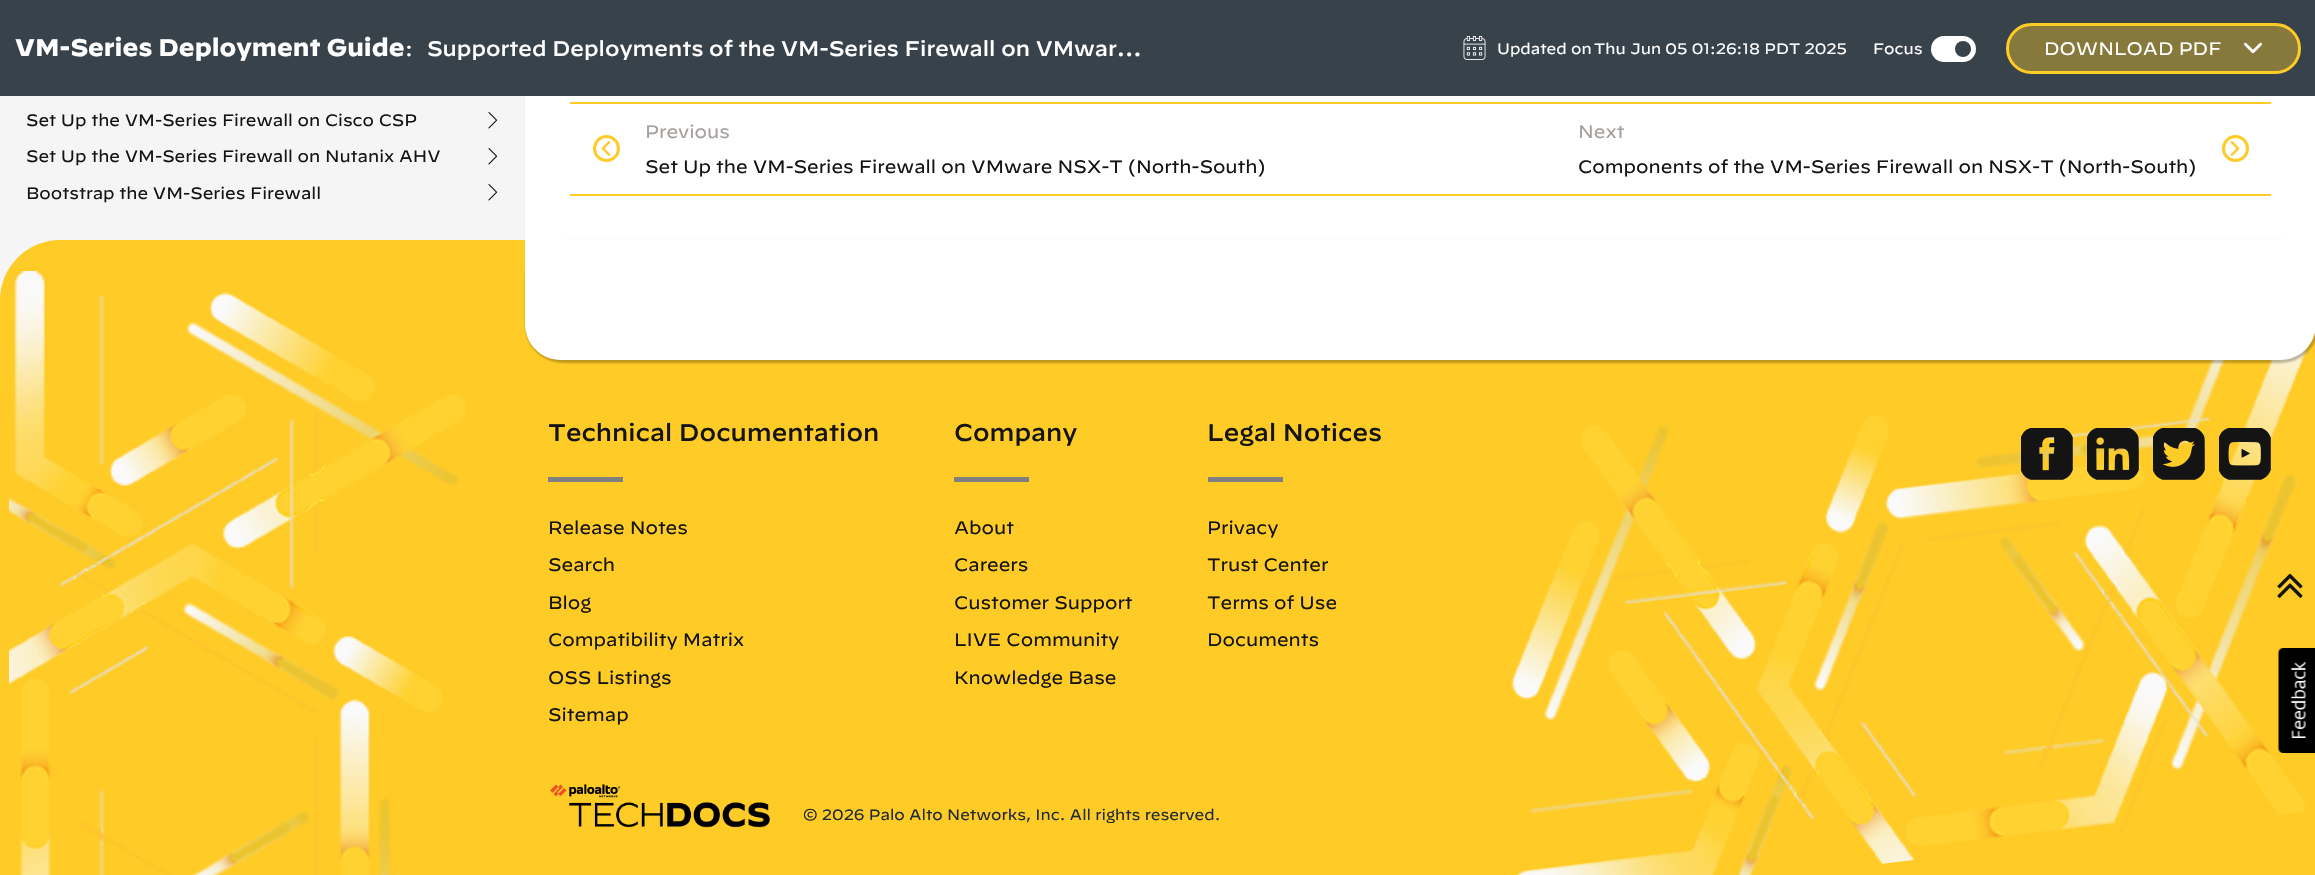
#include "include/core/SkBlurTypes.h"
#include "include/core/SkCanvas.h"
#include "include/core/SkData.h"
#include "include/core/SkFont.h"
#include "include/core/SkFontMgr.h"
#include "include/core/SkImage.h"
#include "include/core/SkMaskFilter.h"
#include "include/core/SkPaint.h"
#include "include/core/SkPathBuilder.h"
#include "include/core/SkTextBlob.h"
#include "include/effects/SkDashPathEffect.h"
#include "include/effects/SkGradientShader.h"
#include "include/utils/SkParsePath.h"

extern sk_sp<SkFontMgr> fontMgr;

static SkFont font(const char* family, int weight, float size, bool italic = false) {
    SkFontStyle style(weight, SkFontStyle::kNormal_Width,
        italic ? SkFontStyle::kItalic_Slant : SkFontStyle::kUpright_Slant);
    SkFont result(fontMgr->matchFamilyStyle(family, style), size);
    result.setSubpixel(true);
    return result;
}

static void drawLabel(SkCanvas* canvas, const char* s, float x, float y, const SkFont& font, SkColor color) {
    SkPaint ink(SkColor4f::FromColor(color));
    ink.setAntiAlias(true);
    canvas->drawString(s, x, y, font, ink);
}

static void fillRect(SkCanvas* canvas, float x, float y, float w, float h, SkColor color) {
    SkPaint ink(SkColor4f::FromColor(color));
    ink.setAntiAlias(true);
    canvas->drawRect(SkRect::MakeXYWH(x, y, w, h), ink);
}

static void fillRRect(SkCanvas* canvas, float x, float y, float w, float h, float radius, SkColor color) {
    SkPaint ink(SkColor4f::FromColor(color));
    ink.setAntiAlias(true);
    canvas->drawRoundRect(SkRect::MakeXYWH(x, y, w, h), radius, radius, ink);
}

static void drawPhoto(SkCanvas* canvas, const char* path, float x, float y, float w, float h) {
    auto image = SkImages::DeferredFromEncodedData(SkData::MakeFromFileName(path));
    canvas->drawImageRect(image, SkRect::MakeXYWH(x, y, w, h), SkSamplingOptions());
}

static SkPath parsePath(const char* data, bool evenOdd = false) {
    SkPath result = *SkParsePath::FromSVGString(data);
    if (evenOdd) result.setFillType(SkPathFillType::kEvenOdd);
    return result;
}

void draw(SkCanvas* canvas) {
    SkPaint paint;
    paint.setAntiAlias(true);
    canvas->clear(0xFFF5F5F5);
    fillRect(canvas, 0, 0, 2315, 96, 0xFF37424B);
    SkFont font1 = font("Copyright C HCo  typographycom", 400, 24);
    drawLabel(canvas, "VM-Series Deployment Guide", 15, 56, font1, 0xFFFFFFFF);
    SkFont font2 = font("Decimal", 400, 21);
    drawLabel(canvas, ":", 405, 56, font2, 0xFFFFFFFF);
    SkFont font3 = font("Copyright C HCo  typographycom", 300, 21);
    drawLabel(canvas, "Supported Deployments of the VM-Series Firewall on VMwar…", 427, 56, font3, 0xFFFFFFFF);
    drawPhoto(canvas, "assets/img1.png", 1463, 36, 23, 24);
    SkFont font4 = font("Decimal", 400, 15);
    drawLabel(canvas, "Updated on", 1497, 54, font4, 0xFFFFFFFF);
    drawLabel(canvas, "Thu Jun 05 01:26:18 PDT 2025", 1594, 54, font4, 0xFFFFFFFF);
    drawLabel(canvas, "Focus", 1873, 54, font4, 0xFFFFFFFF);
    fillRRect(canvas, 1931, 36, 45, 26, 13, 0xFFFFFFFF);
    paint.setColor(0xFF37424B);
    canvas->drawCircle(1963, 49, 8, paint);
    paint.setColor(0xFF87793C);
    canvas->drawRoundRect(SkRect::MakeXYWH(2007.5f, 24.5f, 292, 48), 24, 24, paint);
    paint.setStroke(true);
    paint.setStrokeWidth(3);
    paint.setColor(0xFFFFCB26);
    canvas->drawRoundRect(SkRect::MakeXYWH(2007.5f, 24.5f, 292, 48), 24, 24, paint);
    SkFont font5 = font("Decimal", 400, 18);
    drawLabel(canvas, "DOWNLOAD PDF", 2044, 55, font5, 0xFFFFFFFF);
    drawPhoto(canvas, "assets/img2.png", 2244, 42, 18, 12);
    SkFont font6 = font("Decimal", 400, 16.5f);
    drawLabel(canvas, "Set Up the VM-Series Firewall on Cisco CSP", 26, 126, font6, 0xFF141414);
    drawPhoto(canvas, "assets/img3.png", 488, 112, 10, 17);
    drawLabel(canvas, "Set Up the VM-Series Firewall on Nutanix AHV", 26, 162, font6, 0xFF141414);
    drawPhoto(canvas, "assets/img3.png", 488, 148, 10, 17);
    drawLabel(canvas, "Bootstrap the VM-Series Firewall", 26, 199, font6, 0xFF141414);
    drawPhoto(canvas, "assets/img3.png", 488, 184, 10, 17);
    fillRect(canvas, 525, 96, 1790, 143, 0xFFFFFFFF);
    fillRect(canvas, 570, 102, 1701, 2, 0xFFFFCB26);
    canvas->drawCircle(606.5f, 148.5f, 12, paint);
    drawPhoto(canvas, "assets/img4.png", 601, 141, 10, 15);
    drawLabel(canvas, "Previous", 645, 138, font5, 0xFFA5A09D);
    drawLabel(canvas, "Set Up the VM-Series Firewall on VMware NSX-T (North-South)", 645, 173, font5, 0xFF141414);
    drawLabel(canvas, "Next", 1578, 138, font5, 0xFFA5A09D);
    drawLabel(canvas, "Components of the VM-Series Firewall on NSX-T (North-South)", 1578, 173, font5, 0xFF141414);
    canvas->drawCircle(2235.5f, 148.5f, 12, paint);
    drawPhoto(canvas, "assets/img5.png", 2230, 141, 10, 15);
    fillRect(canvas, 570, 194, 1701, 2, 0xFFFFCB26);
    paint.setStroke(false);
    canvas->drawPath(parsePath("M60 240H2256C2289 240 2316 267 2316 300V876H0V300C0 267 27 240 60 240Z"), paint);
    drawPhoto(canvas, "assets/img11.png", 1511, 332, 804, 543);
    paint.setColor(0x40000000);
    paint.setMaskFilter(SkMaskFilter::MakeBlur(kNormal_SkBlurStyle, 1));
    canvas->drawRoundRect(SkRect::MakeXYWH(525, 240, 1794, 123), 38, 38, paint);
    paint.setMaskFilter(nullptr);
    paint.setColor(0xFFFFFFFF);
    canvas->drawPath(parsePath("M525 240H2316V324C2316 344 2300 360 2280 360H561C541 360 525 344 525 324Z"), paint);
    fillRect(canvas, 525, 239, 1790, 1, 0xFFFFFFFF);
    drawPhoto(canvas, "assets/img6.png", 9, 271, 458, 604);
    SkFont font7 = font("Copyright C HCo  typographycom", 300, 24);
    drawLabel(canvas, "Technical Documentation", 548, 441, font7, 0xFF141414);
    fillRect(canvas, 548, 477, 75, 5, 0xFF808080);
    drawLabel(canvas, "Release Notes", 548, 534, font5, 0xFF141414);
    drawLabel(canvas, "Search", 548, 571, font5, 0xFF141414);
    drawLabel(canvas, "Blog", 548, 609, font5, 0xFF141414);
    drawLabel(canvas, "Compatibility Matrix", 548, 646, font5, 0xFF141414);
    drawLabel(canvas, "OSS Listings", 548, 684, font5, 0xFF141414);
    drawLabel(canvas, "Sitemap", 548, 721, font5, 0xFF141414);
    drawLabel(canvas, "Company", 954, 441, font7, 0xFF141414);
    fillRect(canvas, 954, 477, 75, 5, 0xFF808080);
    drawLabel(canvas, "About", 954, 534, font5, 0xFF141414);
    drawLabel(canvas, "Careers", 954, 571, font5, 0xFF141414);
    drawLabel(canvas, "Customer Support", 954, 609, font5, 0xFF141414);
    drawLabel(canvas, "LIVE Community", 954, 646, font5, 0xFF141414);
    drawLabel(canvas, "Knowledge Base", 954, 684, font5, 0xFF141414);
    drawLabel(canvas, "Legal Notices", 1207, 441, font7, 0xFF141414);
    fillRect(canvas, 1208, 477, 75, 5, 0xFF808080);
    drawLabel(canvas, "Privacy", 1207, 534, font5, 0xFF141414);
    drawLabel(canvas, "Trust Center", 1207, 571, font5, 0xFF141414);
    drawLabel(canvas, "Terms of Use", 1207, 609, font5, 0xFF141414);
    drawLabel(canvas, "Documents", 1207, 646, font5, 0xFF141414);
    drawPhoto(canvas, "assets/img7.png", 2021, 428, 52, 52);
    drawPhoto(canvas, "assets/img8.png", 2087, 428, 52, 52);
    drawPhoto(canvas, "assets/img9.png", 2153, 428, 52, 52);
    drawPhoto(canvas, "assets/img10.png", 2219, 428, 52, 52);
    drawPhoto(canvas, "assets/img12.png", 550, 784, 220, 44);
    drawLabel(canvas, "© 2026 Palo Alto Networks, Inc. All rights reserved.", 803, 820, font4, 0xFF1F2B35);
    drawPhoto(canvas, "assets/img13.png", 2277, 573, 26, 25);
    drawPhoto(canvas, "assets/img14.png", 2278, 648, 37, 105);
}
